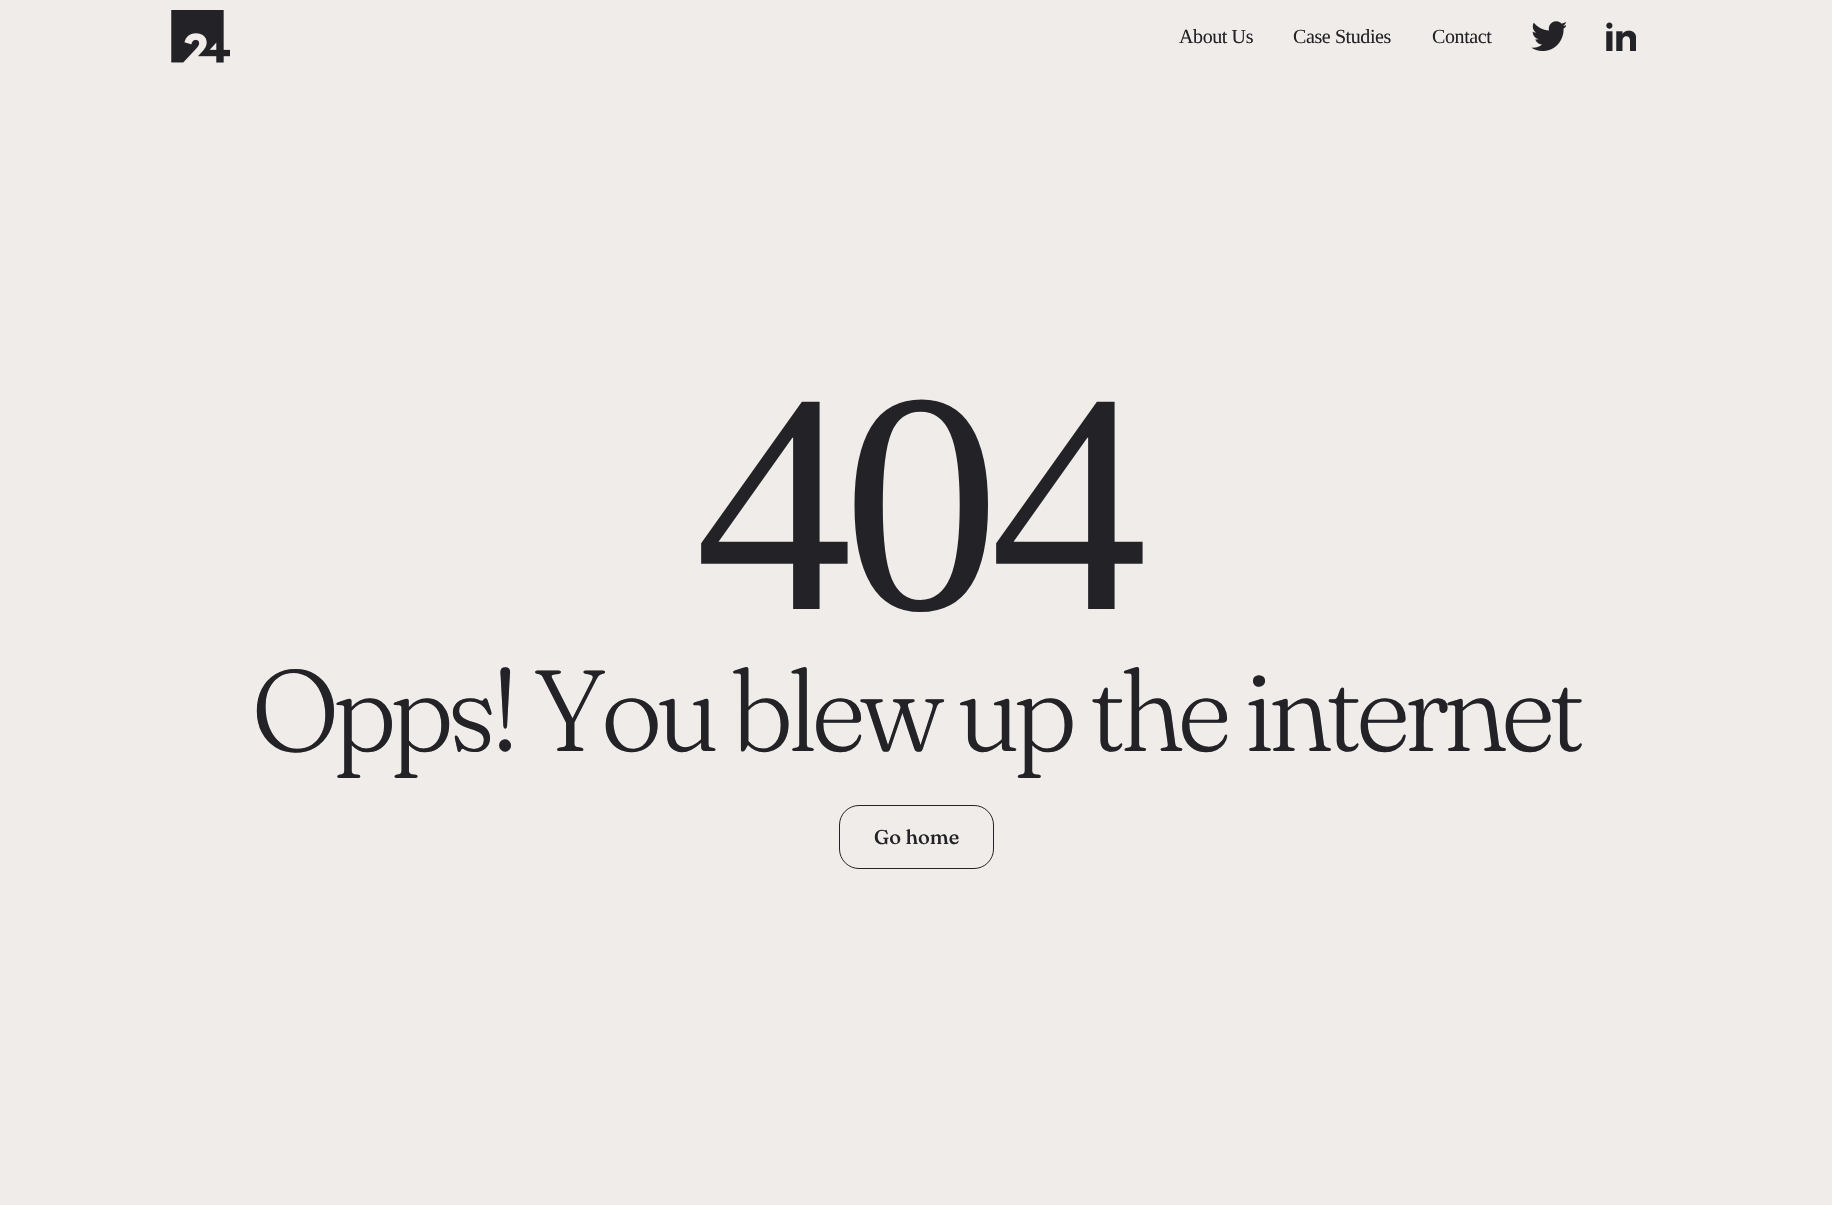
#include "include/core/SkBlurTypes.h"
#include "include/core/SkCanvas.h"
#include "include/core/SkData.h"
#include "include/core/SkFont.h"
#include "include/core/SkFontMgr.h"
#include "include/core/SkImage.h"
#include "include/core/SkMaskFilter.h"
#include "include/core/SkPaint.h"
#include "include/core/SkPathBuilder.h"
#include "include/core/SkTextBlob.h"
#include "include/effects/SkDashPathEffect.h"
#include "include/effects/SkGradientShader.h"
#include "include/utils/SkParsePath.h"

extern sk_sp<SkFontMgr> fontMgr;

static SkFont font(const char* family, int weight, float size, bool italic = false) {
    SkFontStyle style(weight, SkFontStyle::kNormal_Width,
        italic ? SkFontStyle::kItalic_Slant : SkFontStyle::kUpright_Slant);
    SkFont result(fontMgr->matchFamilyStyle(family, style), size);
    result.setSubpixel(true);
    return result;
}

static void drawLabel(SkCanvas* canvas, const char* s, float x, float y, const SkFont& font, SkColor color) {
    SkPaint ink(SkColor4f::FromColor(color));
    ink.setAntiAlias(true);
    canvas->drawString(s, x, y, font, ink);
}

static void drawTracked(SkCanvas* canvas, const char* s, float x, float y, const SkFont& font, const SkPaint& ink, float letter, float word) {
    std::vector<SkGlyphID> glyphs(font.countText(s, strlen(s), SkTextEncoding::kUTF8));
    std::vector<float> xs(glyphs.size());
    font.textToGlyphs(s, strlen(s), SkTextEncoding::kUTF8, glyphs);
    font.getXPos(glyphs, xs, x);
    float extra = 0;
    for (size_t i = 0; i < glyphs.size(); i++) {
        xs[i] += extra;
        extra += letter + word * (glyphs[i] == font.unicharToGlyph(' '));
    }
    canvas->drawTextBlob(SkTextBlob::MakeFromPosHGlyphs(glyphs, xs, y, font), 0, 0, ink);
}

static void drawPhoto(SkCanvas* canvas, const char* path, float x, float y, float w, float h) {
    auto image = SkImages::DeferredFromEncodedData(SkData::MakeFromFileName(path));
    canvas->drawImageRect(image, SkRect::MakeXYWH(x, y, w, h), SkSamplingOptions());
}

void draw(SkCanvas* canvas) {
    SkPaint paint;
    paint.setAntiAlias(true);
    canvas->clear(0xFFF0ECE9);
    drawPhoto(canvas, "assets/img1.png", 171, 10, 59, 53);
    SkFont font1 = font("Liberation Serif", 400, 20);
    paint.setColor(0xFF232327);
    drawTracked(canvas, "About Us", 1179, 43, font1, paint, -0.4f, 0);
    drawTracked(canvas, "Case Studies", 1293, 43, font1, paint, -0.4f, 0);
    drawTracked(canvas, "Contact", 1432, 43, font1, paint, -0.4f, 0);
    drawPhoto(canvas, "assets/img2.png", 1531, 21, 35, 30);
    drawPhoto(canvas, "assets/img3.png", 1606, 22, 30, 29);
    SkFont font2 = font("Liberation Serif", 400, 315);
    drawTracked(canvas, "404", 695, 609, font2, paint, -10, 0);
    SkFont font3 = font("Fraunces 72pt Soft", 300, 115);
    drawTracked(canvas, "Opps! You blew up the internet", 252, 751, font3, paint, -5, 0);
    paint.setStroke(true);
    paint.setStrokeWidth(1);
    canvas->drawRoundRect(SkRect::MakeXYWH(839.5f, 805.5f, 154, 63), 19.5f, 19.5f, paint);
    SkFont font4 = font("Fraunces", 500, 20);
    drawLabel(canvas, "Go home", 874, 844, font4, 0xFF232327);
}
